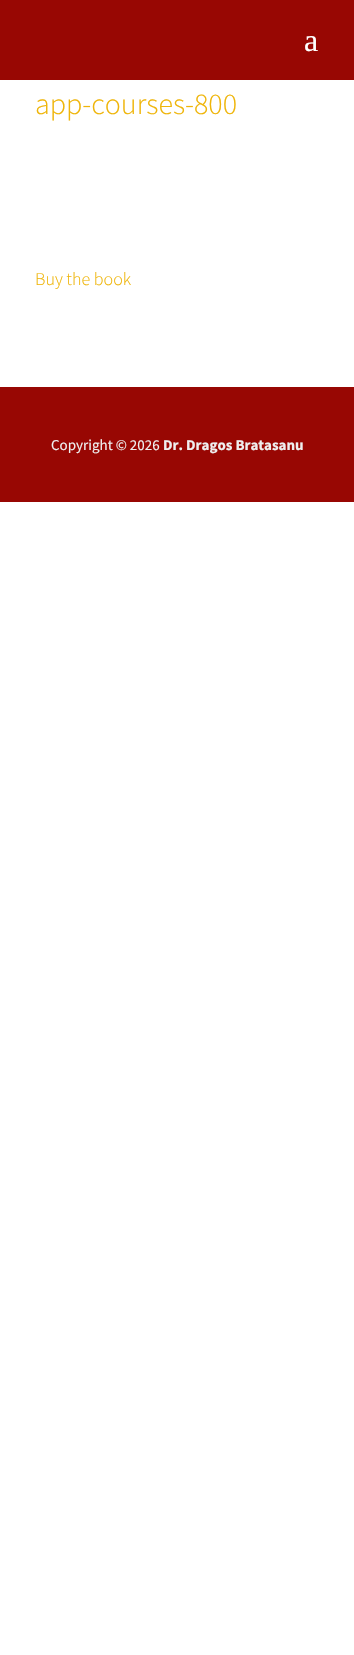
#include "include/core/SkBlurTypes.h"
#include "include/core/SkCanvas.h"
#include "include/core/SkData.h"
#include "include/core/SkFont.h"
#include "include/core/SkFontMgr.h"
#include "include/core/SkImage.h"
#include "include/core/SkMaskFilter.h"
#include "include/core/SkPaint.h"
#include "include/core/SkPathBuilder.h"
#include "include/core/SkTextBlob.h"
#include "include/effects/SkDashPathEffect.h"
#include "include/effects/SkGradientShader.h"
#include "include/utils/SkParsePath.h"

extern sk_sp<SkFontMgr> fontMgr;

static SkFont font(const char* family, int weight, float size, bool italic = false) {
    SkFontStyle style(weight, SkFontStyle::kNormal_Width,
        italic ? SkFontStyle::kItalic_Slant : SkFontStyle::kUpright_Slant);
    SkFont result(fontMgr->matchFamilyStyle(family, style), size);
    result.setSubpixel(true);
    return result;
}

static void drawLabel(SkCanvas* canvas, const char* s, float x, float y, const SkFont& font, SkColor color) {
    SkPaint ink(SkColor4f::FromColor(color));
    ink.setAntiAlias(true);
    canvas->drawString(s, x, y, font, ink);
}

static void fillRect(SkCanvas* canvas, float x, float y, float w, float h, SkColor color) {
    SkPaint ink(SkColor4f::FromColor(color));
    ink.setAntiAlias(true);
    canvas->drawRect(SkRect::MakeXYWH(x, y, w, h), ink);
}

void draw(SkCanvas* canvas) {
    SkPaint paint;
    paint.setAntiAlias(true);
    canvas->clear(0xFFFFFFFF);
    fillRect(canvas, 0, 0, 354, 80, 0xFF980703);
    SkFont font1 = font("Liberation Serif", 400, 32);
    drawLabel(canvas, "a", 304, 51, font1, 0xFFFFFFFF);
    SkFont font2 = font("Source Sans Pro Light", 300, 30);
    drawLabel(canvas, "app-courses-800", 35, 114, font2, 0xFFEFB509);
    SkFont font3 = font("Source Sans Pro Light", 300, 18);
    drawLabel(canvas, "Buy the book", 35, 285, font3, 0xFFEFB509);
    fillRect(canvas, 0, 387, 354, 115, 0xFF980703);
    SkFont font4 = font("Source Sans Pro", 400, 15);
    drawLabel(canvas, "Copyright © 2026", 51, 450, font4, 0xFFEFEFEF);
    SkFont font5 = font("Source Sans Pro", 700, 15);
    drawLabel(canvas, "Dr. Dragos Bratasanu", 163, 450, font5, 0xFFEFEFEF);
}
